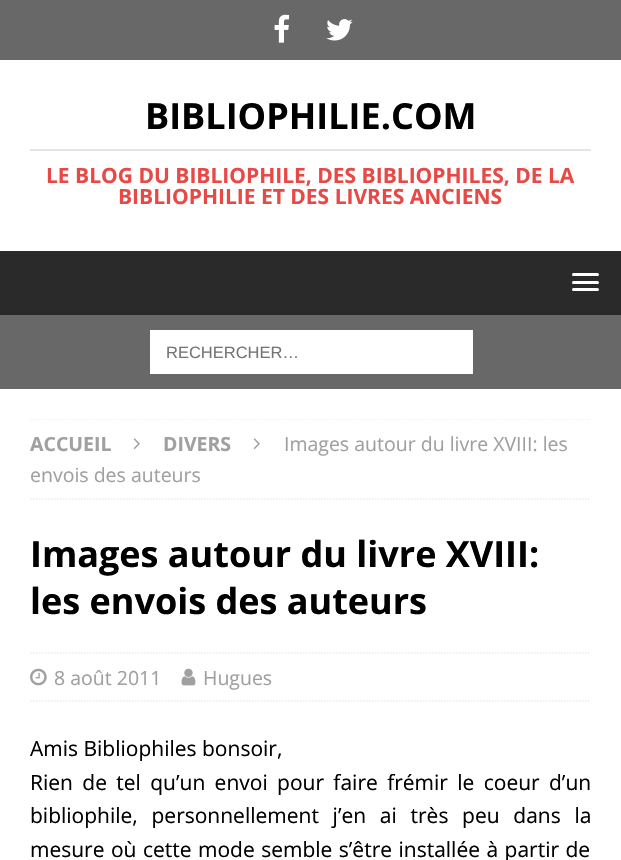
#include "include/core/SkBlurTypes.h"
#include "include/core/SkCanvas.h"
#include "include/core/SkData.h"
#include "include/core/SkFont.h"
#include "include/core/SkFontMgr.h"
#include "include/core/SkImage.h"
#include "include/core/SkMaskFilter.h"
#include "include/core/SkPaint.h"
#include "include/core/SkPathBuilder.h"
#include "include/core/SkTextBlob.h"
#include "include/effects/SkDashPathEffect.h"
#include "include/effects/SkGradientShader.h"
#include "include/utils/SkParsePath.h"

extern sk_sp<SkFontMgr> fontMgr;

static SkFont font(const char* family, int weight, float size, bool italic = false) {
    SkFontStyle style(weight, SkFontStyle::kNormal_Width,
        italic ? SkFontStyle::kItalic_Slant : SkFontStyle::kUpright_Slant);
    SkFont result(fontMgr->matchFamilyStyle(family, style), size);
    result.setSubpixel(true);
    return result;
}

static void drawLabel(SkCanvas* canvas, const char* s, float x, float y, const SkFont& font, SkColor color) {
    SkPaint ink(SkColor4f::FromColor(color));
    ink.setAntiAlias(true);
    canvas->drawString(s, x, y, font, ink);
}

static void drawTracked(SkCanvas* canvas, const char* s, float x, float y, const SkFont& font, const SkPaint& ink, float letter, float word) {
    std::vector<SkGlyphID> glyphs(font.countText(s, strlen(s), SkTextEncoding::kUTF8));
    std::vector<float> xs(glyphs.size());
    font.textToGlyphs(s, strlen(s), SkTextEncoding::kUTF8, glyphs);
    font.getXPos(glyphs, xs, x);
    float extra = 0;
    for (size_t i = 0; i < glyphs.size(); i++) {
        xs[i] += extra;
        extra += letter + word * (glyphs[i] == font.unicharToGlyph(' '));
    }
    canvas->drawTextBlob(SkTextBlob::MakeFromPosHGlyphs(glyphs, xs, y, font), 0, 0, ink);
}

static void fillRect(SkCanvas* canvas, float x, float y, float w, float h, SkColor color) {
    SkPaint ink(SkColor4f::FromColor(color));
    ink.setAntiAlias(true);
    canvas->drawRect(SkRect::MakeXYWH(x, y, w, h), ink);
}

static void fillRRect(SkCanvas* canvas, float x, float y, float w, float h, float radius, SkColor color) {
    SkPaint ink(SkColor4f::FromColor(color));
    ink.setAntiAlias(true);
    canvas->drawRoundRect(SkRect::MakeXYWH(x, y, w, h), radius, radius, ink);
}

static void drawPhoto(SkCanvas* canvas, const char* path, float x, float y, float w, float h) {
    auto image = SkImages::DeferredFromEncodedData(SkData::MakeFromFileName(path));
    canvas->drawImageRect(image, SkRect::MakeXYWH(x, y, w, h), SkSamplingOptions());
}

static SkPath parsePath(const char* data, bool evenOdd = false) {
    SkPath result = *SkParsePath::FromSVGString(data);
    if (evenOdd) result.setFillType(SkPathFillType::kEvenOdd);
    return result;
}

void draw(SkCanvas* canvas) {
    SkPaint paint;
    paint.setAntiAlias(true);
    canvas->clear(0xFF686868);
    drawPhoto(canvas, "assets/img1.png", 274, 14, 16, 29);
    drawPhoto(canvas, "assets/img2.png", 326, 19, 27, 22);
    fillRect(canvas, 0, 60, 621, 191, 0xFFFFFFFF);
    SkFont font1 = font("Open Sans", 700, 36);
    drawLabel(canvas, "BIBLIOPHILIE.COM", 145, 129, font1, 0xFF000000);
    fillRect(canvas, 30, 149, 561, 2, 0xFFE5E5E5);
    SkFont font2 = font("Open Sans", 700, 21);
    drawLabel(canvas, "LE BLOG DU BIBLIOPHILE, DES BIBLIOPHILES, DE LA", 46, 183, font2, 0xFFE64946);
    drawLabel(canvas, "BIBLIOPHILIE ET DES LIVRES ANCIENS", 118, 204, font2, 0xFFE64946);
    fillRect(canvas, 0, 251, 621, 64, 0xFF2A2A2A);
    fillRRect(canvas, 572, 273, 27, 3, 1.5f, 0xFFFFFFFF);
    fillRRect(canvas, 572, 281, 27, 3, 1.5f, 0xFFFFFFFF);
    fillRRect(canvas, 572, 288, 27, 3, 1.5f, 0xFFFFFFFF);
    fillRect(canvas, 150, 330, 323, 44, 0xFFFFFFFF);
    SkFont font3 = font("Liberation Sans", 400, 16.5f);
    drawLabel(canvas, "RECHERCHER…", 166, 358, font3, 0xFF757575);
    fillRect(canvas, 0, 389, 621, 471, 0xFFFFFFFF);
    canvas->save();
    canvas->clipRect(SkRect::MakeXYWH(30, 419, 561, 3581));
    paint.setStroke(true);
    paint.setStrokeWidth(1.5f);
    paint.setColor(0xFFEBEBEB);
    paint.setPathEffect(SkDashPathEffect::Make({{1.5f, 1.5f}}, 0));
    canvas->drawPath(parsePath("M30 419H591"), paint);
    paint.setPathEffect(nullptr);
    canvas->restore();
    paint.setPathEffect(SkDashPathEffect::Make({{1.5f, 1.5f}}, 0));
    canvas->drawPath(parsePath("M30 499H591"), paint);
    paint.setPathEffect(nullptr);
    SkFont font4 = font("Open Sans", 700, 19.5f);
    drawLabel(canvas, "ACCUEIL", 30, 451, font4, 0xFFA0A0A0);
    drawPhoto(canvas, "assets/img3.png", 133, 438, 7, 12);
    drawLabel(canvas, "DIVERS", 163, 451, font4, 0xFFA0A0A0);
    drawPhoto(canvas, "assets/img3.png", 253, 438, 7, 12);
    SkFont font5 = font("Open Sans", 400, 19.5f);
    drawLabel(canvas, "Images autour du livre XVIII: les", 284, 451, font5, 0xFFA0A0A0);
    drawLabel(canvas, "envois des auteurs", 30, 482, font5, 0xFFA0A0A0);
    drawLabel(canvas, "Images autour du livre XVIII:", 30, 567, font1, 0xFF000000);
    drawLabel(canvas, "les envois des auteurs", 30, 614, font1, 0xFF000000);
    paint.setPathEffect(SkDashPathEffect::Make({{1.5f, 1.5f}}, 0));
    canvas->drawPath(parsePath("M30 653H591"), paint);
    paint.setPathEffect(nullptr);
    paint.setPathEffect(SkDashPathEffect::Make({{1.5f, 1.5f}}, 0));
    canvas->drawPath(parsePath("M30 701H591"), paint);
    paint.setPathEffect(nullptr);
    drawPhoto(canvas, "assets/img4.png", 30, 668, 17, 18);
    drawLabel(canvas, "8 août 2011", 54, 685, font5, 0xFFA0A0A0);
    drawPhoto(canvas, "assets/img5.png", 181, 668, 15, 18);
    drawLabel(canvas, "Hugues", 203, 685, font5, 0xFFA0A0A0);
    SkFont font6 = font("Open Sans", 400, 21);
    drawLabel(canvas, "Amis Bibliophiles bonsoir,", 30, 756, font6, 0xFF000000);
    paint.setStroke(false);
    paint.setColor(0xFF000000);
    drawTracked(canvas, "Rien de tel qu’un envoi pour faire frémir le coeur d’un", 30, 790, font6, paint, 0, 3.9f);
    drawTracked(canvas, "bibliophile, personnellement j’en ai très peu dans la", 30, 823, font6, paint, 0, 8.25f);
    drawTracked(canvas, "mesure où cette mode semble s’être installée à partir de", 30, 857, font6, paint, 0, 1);
}
